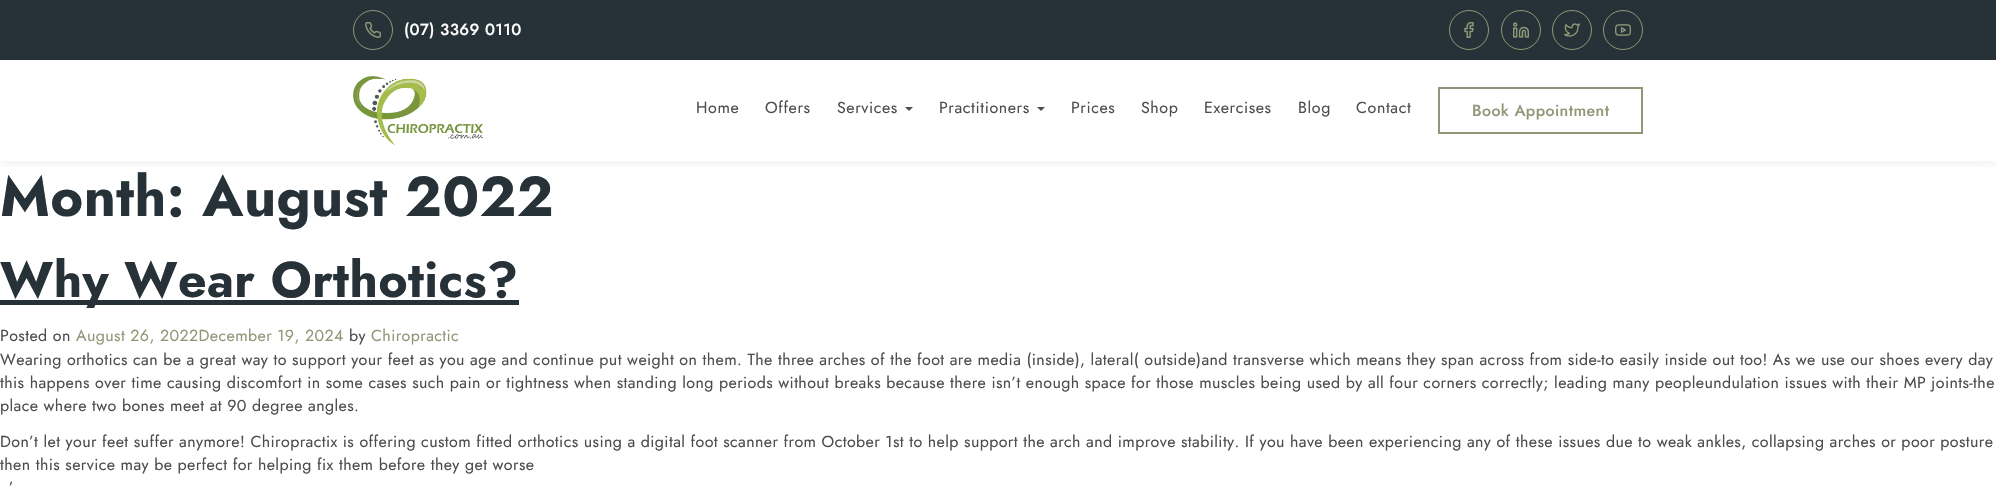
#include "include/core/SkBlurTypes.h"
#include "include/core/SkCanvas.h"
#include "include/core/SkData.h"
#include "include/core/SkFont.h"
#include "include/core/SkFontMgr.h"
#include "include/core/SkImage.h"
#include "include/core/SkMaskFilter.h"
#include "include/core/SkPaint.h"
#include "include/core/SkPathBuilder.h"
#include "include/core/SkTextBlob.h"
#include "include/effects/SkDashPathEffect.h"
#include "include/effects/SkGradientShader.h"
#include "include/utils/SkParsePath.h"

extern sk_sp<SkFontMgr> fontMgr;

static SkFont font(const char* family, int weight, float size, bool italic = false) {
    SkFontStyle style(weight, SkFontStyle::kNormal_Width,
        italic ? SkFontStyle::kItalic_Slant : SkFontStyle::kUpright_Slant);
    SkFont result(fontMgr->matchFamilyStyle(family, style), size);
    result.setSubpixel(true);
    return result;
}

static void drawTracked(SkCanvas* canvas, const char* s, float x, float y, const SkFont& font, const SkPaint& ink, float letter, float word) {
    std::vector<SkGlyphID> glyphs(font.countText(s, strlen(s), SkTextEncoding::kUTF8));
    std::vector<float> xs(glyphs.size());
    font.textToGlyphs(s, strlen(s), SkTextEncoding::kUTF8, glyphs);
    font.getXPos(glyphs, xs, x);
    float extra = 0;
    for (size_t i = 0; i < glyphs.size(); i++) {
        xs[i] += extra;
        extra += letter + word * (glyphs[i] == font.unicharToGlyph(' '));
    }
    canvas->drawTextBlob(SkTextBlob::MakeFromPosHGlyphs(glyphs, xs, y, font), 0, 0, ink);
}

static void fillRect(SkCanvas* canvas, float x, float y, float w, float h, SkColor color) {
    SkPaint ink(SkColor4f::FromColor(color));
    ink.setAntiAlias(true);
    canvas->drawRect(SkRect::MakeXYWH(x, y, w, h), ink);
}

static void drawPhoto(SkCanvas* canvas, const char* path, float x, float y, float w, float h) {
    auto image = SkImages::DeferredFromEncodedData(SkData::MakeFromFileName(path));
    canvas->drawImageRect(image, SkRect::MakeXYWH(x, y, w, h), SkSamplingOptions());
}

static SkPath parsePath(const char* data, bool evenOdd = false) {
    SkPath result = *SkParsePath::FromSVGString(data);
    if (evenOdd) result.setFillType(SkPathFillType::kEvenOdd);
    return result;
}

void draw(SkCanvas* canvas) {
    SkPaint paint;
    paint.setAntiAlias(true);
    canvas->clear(0xFFFFFFFF);
    canvas->save();
    canvas->clipRect(SkRect::MakeXYWH(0, 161, 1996, 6));
    paint.setColor(0x1A263238);
    paint.setMaskFilter(SkMaskFilter::MakeBlur(kNormal_SkBlurStyle, 7.5f));
    canvas->drawRect(SkRect::MakeXYWH(0, 0, 1996, 161), paint);
    paint.setMaskFilter(nullptr);
    canvas->restore();
    fillRect(canvas, 0, 0, 1996, 60, 0xFF263238);
    paint.setStroke(true);
    paint.setStrokeWidth(1);
    paint.setColor(0xFF8E9876);
    canvas->drawCircle(373, 30, 19.5f, paint);
    drawPhoto(canvas, "assets/img1.png", 365, 22, 16, 16);
    SkFont font1 = font("Jost", 500, 16);
    paint.setStroke(false);
    paint.setColor(0xFFFFFFFF);
    drawTracked(canvas, "(07) 3369 0110", 404, 35, font1, paint, 0.4f, 0);
    paint.setStroke(true);
    paint.setColor(0xFF8E9876);
    canvas->drawCircle(1469, 30, 19.5f, paint);
    drawPhoto(canvas, "assets/img2.png", 1464, 22, 10, 16);
    canvas->drawCircle(1521, 30, 19.5f, paint);
    drawPhoto(canvas, "assets/img3.png", 1513, 22, 16, 16);
    canvas->drawCircle(1572, 30, 19.5f, paint);
    drawPhoto(canvas, "assets/img4.png", 1564, 23, 16, 14);
    canvas->drawCircle(1623, 30, 19.5f, paint);
    drawPhoto(canvas, "assets/img5.png", 1615, 24, 16, 12);
    drawPhoto(canvas, "assets/img6.png", 353, 76, 130, 69);
    SkFont font2 = font("Jost", 400, 16);
    paint.setStroke(false);
    paint.setColor(0xFF4D4D4D);
    drawTracked(canvas, "Home", 696, 113, font2, paint, 0.6f, 0);
    drawTracked(canvas, "Offers", 765, 113, font2, paint, 0.6f, 0);
    drawTracked(canvas, "Services", 837, 113, font2, paint, 0.6f, 0);
    canvas->drawPath(parsePath("M905 107H913L909 111Z"), paint);
    drawTracked(canvas, "Practitioners", 939, 113, font2, paint, 0.6f, 0);
    canvas->drawPath(parsePath("M1037 107H1045L1041 111Z"), paint);
    drawTracked(canvas, "Prices", 1071, 113, font2, paint, 0.6f, 0);
    drawTracked(canvas, "Shop", 1141, 113, font2, paint, 0.6f, 0);
    drawTracked(canvas, "Exercises", 1204, 113, font2, paint, 0.6f, 0);
    drawTracked(canvas, "Blog", 1298, 113, font2, paint, 0.6f, 0);
    drawTracked(canvas, "Contact", 1356, 113, font2, paint, 0.6f, 0);
    paint.setStroke(true);
    paint.setStrokeWidth(2);
    paint.setColor(0xFF8E9876);
    canvas->drawRect(SkRect::MakeXYWH(1439, 88, 203, 45), paint);
    paint.setStroke(false);
    drawTracked(canvas, "Book Appointment", 1472, 116, font1, paint, 0.4f, 0);
    SkFont font3 = font("Jost", 700, 56);
    paint.setColor(0xFF263238);
    drawTracked(canvas, "Month: August 2022", 0, 216, font3, paint, 0.4f, 0);
    fillRect(canvas, 0, 300, 519, 5, 0xFF263238);
    SkFont font4 = font("Jost", 700, 50);
    drawTracked(canvas, "Why Wear Orthotics?", 0, 297, font4, paint, 0.4f, 0);
    paint.setColor(0xFF4D4D4D);
    drawTracked(canvas, "Posted on", 0, 341, font2, paint, 0.4f, 0);
    paint.setColor(0xFF8E9876);
    drawTracked(canvas, "August 26, 2022December 19, 2024", 76, 341, font2, paint, 0.4f, 0);
    paint.setColor(0xFF4D4D4D);
    drawTracked(canvas, "by", 349, 341, font2, paint, 0.4f, 0);
    paint.setColor(0xFF8E9876);
    drawTracked(canvas, "Chiropractic", 371, 341, font2, paint, 0.4f, 0);
    paint.setColor(0xFF4D4D4D);
    drawTracked(canvas, "Wearing orthotics can be a great way to support your feet as you age and continue put weight on them. The three arches of the foot are media (inside), lateral( outside)and transverse which means they span across from side-to easily inside out too! As we use our shoes every day", 0, 365, font2, paint, 0.4f, 0);
    drawTracked(canvas, "this happens over time causing discomfort in some cases such pain or tightness when standing long periods without breaks because there isn’t enough space for those muscles being used by all four corners correctly; leading many peopleundulation issues with their MP joints-the", 0, 388, font2, paint, 0.4f, 0);
    drawTracked(canvas, "place where two bones meet at 90 degree angles.", 0, 411, font2, paint, 0.4f, 0);
    drawTracked(canvas, "Don’t let your feet suffer anymore! Chiropractix is offering custom fitted orthotics using a digital foot scanner from October 1st to help support the arch and improve stability. If you have been experiencing any of these issues due to weak ankles, collapsing arches or poor posture", 0, 447, font2, paint, 0.4f, 0);
    drawTracked(canvas, "then this service may be perfect for helping fix them before they get worse", 0, 470, font2, paint, 0.4f, 0);
    drawTracked(canvas, "’", 9, 493, font2, paint, 0.4f, 0);
}
